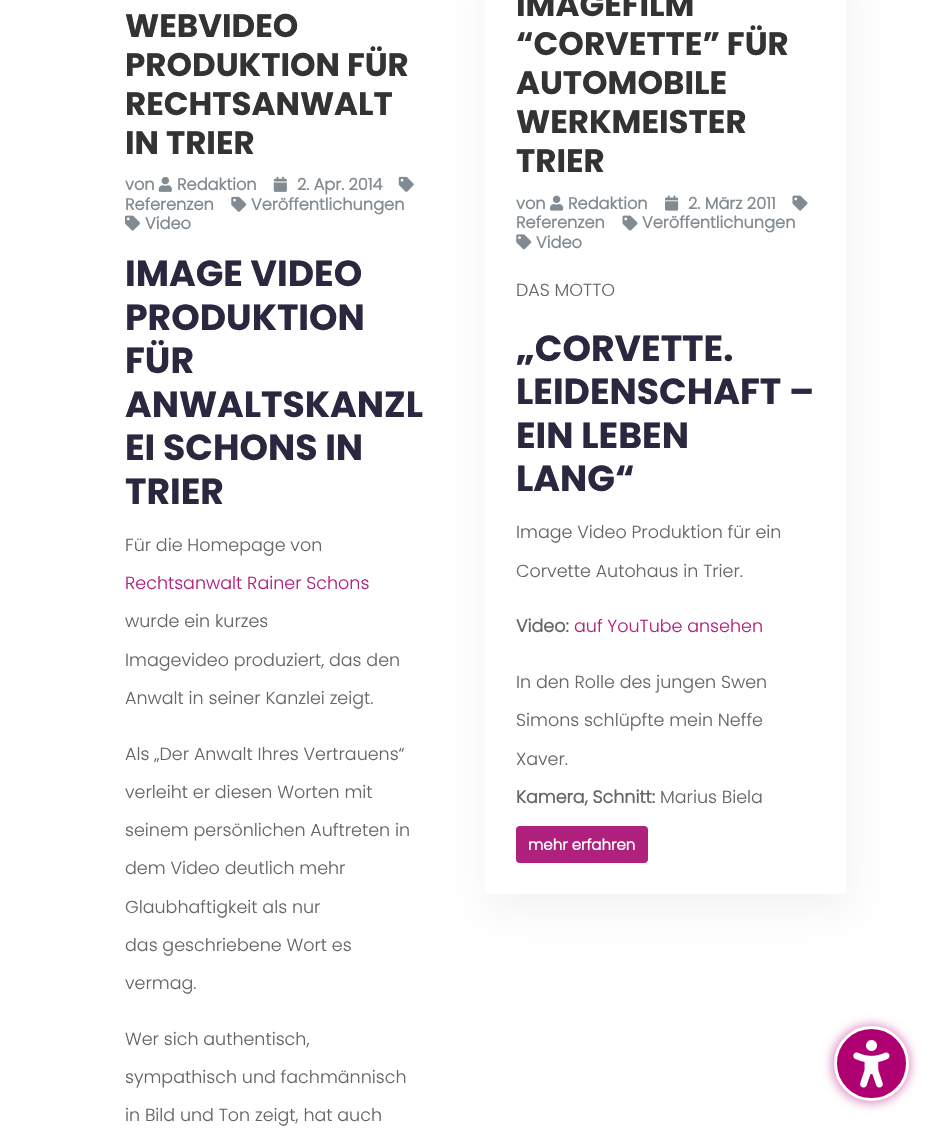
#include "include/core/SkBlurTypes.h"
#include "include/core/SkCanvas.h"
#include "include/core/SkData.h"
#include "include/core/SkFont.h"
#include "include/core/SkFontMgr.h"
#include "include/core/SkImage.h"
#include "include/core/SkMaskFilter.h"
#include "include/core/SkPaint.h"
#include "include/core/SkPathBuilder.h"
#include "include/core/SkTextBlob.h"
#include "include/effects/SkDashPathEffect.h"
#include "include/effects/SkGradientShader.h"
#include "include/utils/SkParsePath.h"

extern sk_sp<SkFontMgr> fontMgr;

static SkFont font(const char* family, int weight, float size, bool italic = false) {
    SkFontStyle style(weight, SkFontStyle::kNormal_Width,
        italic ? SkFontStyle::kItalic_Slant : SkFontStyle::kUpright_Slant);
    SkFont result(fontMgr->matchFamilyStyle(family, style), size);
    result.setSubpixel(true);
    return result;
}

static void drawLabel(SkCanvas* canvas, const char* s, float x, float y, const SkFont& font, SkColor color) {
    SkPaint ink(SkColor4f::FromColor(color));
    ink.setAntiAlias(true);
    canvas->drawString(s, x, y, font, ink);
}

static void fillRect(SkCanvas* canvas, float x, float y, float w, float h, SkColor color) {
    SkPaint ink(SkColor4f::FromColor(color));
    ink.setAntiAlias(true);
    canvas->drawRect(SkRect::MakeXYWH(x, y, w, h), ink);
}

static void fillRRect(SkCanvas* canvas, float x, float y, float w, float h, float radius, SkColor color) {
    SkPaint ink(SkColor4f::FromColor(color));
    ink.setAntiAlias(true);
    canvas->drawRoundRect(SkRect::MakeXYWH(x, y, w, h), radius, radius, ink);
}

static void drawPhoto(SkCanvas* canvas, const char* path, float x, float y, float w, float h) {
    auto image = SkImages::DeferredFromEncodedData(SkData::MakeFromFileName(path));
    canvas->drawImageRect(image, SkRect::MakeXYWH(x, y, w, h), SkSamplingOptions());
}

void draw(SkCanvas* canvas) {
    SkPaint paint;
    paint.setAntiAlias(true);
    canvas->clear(0xFFFFFFFF);
    SkFont font1 = font("Poppins", 700, 32.5f);
    drawLabel(canvas, "WEBVIDEO", 125, 37, font1, 0xFF333333);
    drawLabel(canvas, "PRODUKTION FÜR", 125, 76, font1, 0xFF333333);
    drawLabel(canvas, "RECHTSANWALT", 125, 115, font1, 0xFF333333);
    drawLabel(canvas, "IN TRIER", 125, 154, font1, 0xFF333333);
    SkFont font2 = font("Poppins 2", 700, 16.25f);
    drawLabel(canvas, "von", 125, 190, font2, 0xFF818B91);
    drawPhoto(canvas, "assets/img1.png", 158, 176, 14, 16);
    drawLabel(canvas, "Redaktion", 177, 190, font2, 0xFF818B91);
    drawPhoto(canvas, "assets/img2.png", 273, 176, 14, 16);
    drawLabel(canvas, "2. Apr. 2014", 297, 190, font2, 0xFF818B91);
    drawPhoto(canvas, "assets/img3.png", 398, 176, 16, 16);
    drawLabel(canvas, "Referenzen", 125, 210, font2, 0xFF818B91);
    drawPhoto(canvas, "assets/img4.png", 231, 196, 16, 16);
    drawLabel(canvas, "Veröffentlichungen", 251, 210, font2, 0xFF818B91);
    drawPhoto(canvas, "assets/img5.png", 125, 215, 15, 16);
    drawLabel(canvas, "Video", 145, 229, font2, 0xFF818B91);
    SkFont font3 = font("Poppins", 700, 36.25f);
    drawLabel(canvas, "IMAGE VIDEO", 125, 286, font3, 0xFF2A273F);
    drawLabel(canvas, "PRODUKTION", 125, 330, font3, 0xFF2A273F);
    drawLabel(canvas, "FÜR", 125, 373, font3, 0xFF2A273F);
    drawLabel(canvas, "ANWALTSKANZL", 125, 417, font3, 0xFF2A273F);
    drawLabel(canvas, "EI SCHONS IN", 125, 460, font3, 0xFF2A273F);
    drawLabel(canvas, "TRIER", 125, 504, font3, 0xFF2A273F);
    SkFont font4 = font("Poppins", 300, 17.5f);
    drawLabel(canvas, "Für die Homepage von", 125, 551, font4, 0xFF666666);
    drawLabel(canvas, "Rechtsanwalt Rainer Schons", 125, 589, font4, 0xFFAF217D);
    drawLabel(canvas, "wurde ein kurzes", 125, 627, font4, 0xFF666666);
    drawLabel(canvas, "Imagevideo produziert, das den", 125, 666, font4, 0xFF666666);
    drawLabel(canvas, "Anwalt in seiner Kanzlei zeigt.", 125, 704, font4, 0xFF666666);
    drawLabel(canvas, "Als „Der Anwalt Ihres Vertrauens“", 125, 760, font4, 0xFF666666);
    drawLabel(canvas, "verleiht er diesen Worten mit", 125, 798, font4, 0xFF666666);
    drawLabel(canvas, "seinem persönlichen Auftreten in", 125, 836, font4, 0xFF666666);
    drawLabel(canvas, "dem Video deutlich mehr", 125, 874, font4, 0xFF666666);
    drawLabel(canvas, "Glaubhaftigkeit als nur", 125, 913, font4, 0xFF666666);
    drawLabel(canvas, "das geschriebene Wort es", 125, 951, font4, 0xFF666666);
    drawLabel(canvas, "vermag.", 125, 989, font4, 0xFF666666);
    drawLabel(canvas, "Wer sich authentisch,", 125, 1045, font4, 0xFF666666);
    drawLabel(canvas, "sympathisch und fachmännisch", 125, 1083, font4, 0xFF666666);
    drawLabel(canvas, "in Bild und Ton zeigt, hat auch", 125, 1121, font4, 0xFF666666);
    paint.setColor(0x0D000000);
    paint.setMaskFilter(SkMaskFilter::MakeBlur(kNormal_SkBlurStyle, 19));
    canvas->drawRect(SkRect::MakeXYWH(488, -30, 361, 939), paint);
    paint.setMaskFilter(nullptr);
    fillRect(canvas, 485, 0, 361, 894, 0xFFFFFFFF);
    drawLabel(canvas, "IMAGEFILM", 516, 16, font1, 0xFF333333);
    drawLabel(canvas, "“CORVETTE” FÜR", 516, 55, font1, 0xFF333333);
    drawLabel(canvas, "AUTOMOBILE", 516, 94, font1, 0xFF333333);
    drawLabel(canvas, "WERKMEISTER", 516, 133, font1, 0xFF333333);
    drawLabel(canvas, "TRIER", 516, 172, font1, 0xFF333333);
    drawLabel(canvas, "von", 516, 209, font2, 0xFF818B91);
    drawPhoto(canvas, "assets/img6.png", 550, 195, 14, 16);
    drawLabel(canvas, "Redaktion", 568, 209, font2, 0xFF818B91);
    drawPhoto(canvas, "assets/img7.png", 665, 195, 14, 16);
    drawLabel(canvas, "2. März 2011", 688, 209, font2, 0xFF818B91);
    drawPhoto(canvas, "assets/img8.png", 792, 195, 16, 16);
    drawLabel(canvas, "Referenzen", 516, 228, font2, 0xFF818B91);
    drawPhoto(canvas, "assets/img8.png", 622, 215, 16, 16);
    drawLabel(canvas, "Veröffentlichungen", 642, 228, font2, 0xFF818B91);
    drawPhoto(canvas, "assets/img9.png", 516, 234, 16, 16);
    drawLabel(canvas, "Video", 536, 248, font2, 0xFF818B91);
    drawLabel(canvas, "DAS MOTTO", 516, 296, font4, 0xFF666666);
    drawLabel(canvas, "„CORVETTE.", 516, 361, font3, 0xFF2A273F);
    drawLabel(canvas, "LEIDENSCHAFT –", 516, 404, font3, 0xFF2A273F);
    drawLabel(canvas, "EIN LEBEN", 516, 448, font3, 0xFF2A273F);
    drawLabel(canvas, "LANG“", 516, 491, font3, 0xFF2A273F);
    drawLabel(canvas, "Image Video Produktion für ein", 516, 538, font4, 0xFF666666);
    drawLabel(canvas, "Corvette Autohaus in Trier.", 516, 577, font4, 0xFF666666);
    SkFont font5 = font("Poppins 2", 700, 17.5f);
    drawLabel(canvas, "Video:", 516, 632, font5, 0xFF666666);
    drawLabel(canvas, "auf YouTube ansehen", 574, 632, font4, 0xFFAF217D);
    drawLabel(canvas, "In den Rolle des jungen Swen", 516, 688, font4, 0xFF666666);
    drawLabel(canvas, "Simons schlüpfte mein Neffe", 516, 726, font4, 0xFF666666);
    drawLabel(canvas, "Xaver.", 516, 765, font4, 0xFF666666);
    drawLabel(canvas, "Kamera, Schnitt:", 516, 803, font5, 0xFF666666);
    drawLabel(canvas, "Marius Biela", 660, 803, font4, 0xFF666666);
    fillRRect(canvas, 516, 826, 132, 37, 4, 0xFFAF217D);
    SkFont font6 = font("Poppins 2", 700, 15);
    drawLabel(canvas, "mehr erfahren", 528, 850, font6, 0xFFFFFFFF);
    paint.setColor(0x66AF0072);
    paint.setMaskFilter(SkMaskFilter::MakeBlur(kNormal_SkBlurStyle, 5));
    canvas->drawRoundRect(SkRect::MakeXYWH(831, 1024, 80, 80), 40, 40, paint);
    paint.setMaskFilter(nullptr);
    paint.setColor(0xFFAF0072);
    canvas->drawCircle(871.5f, 1063.5f, 36, paint);
    paint.setStroke(true);
    paint.setStrokeWidth(3);
    paint.setColor(0xFFFFFFFF);
    canvas->drawCircle(871.5f, 1063.5f, 36, paint);
    drawPhoto(canvas, "assets/img10.png", 853, 1040, 37, 48);
}
